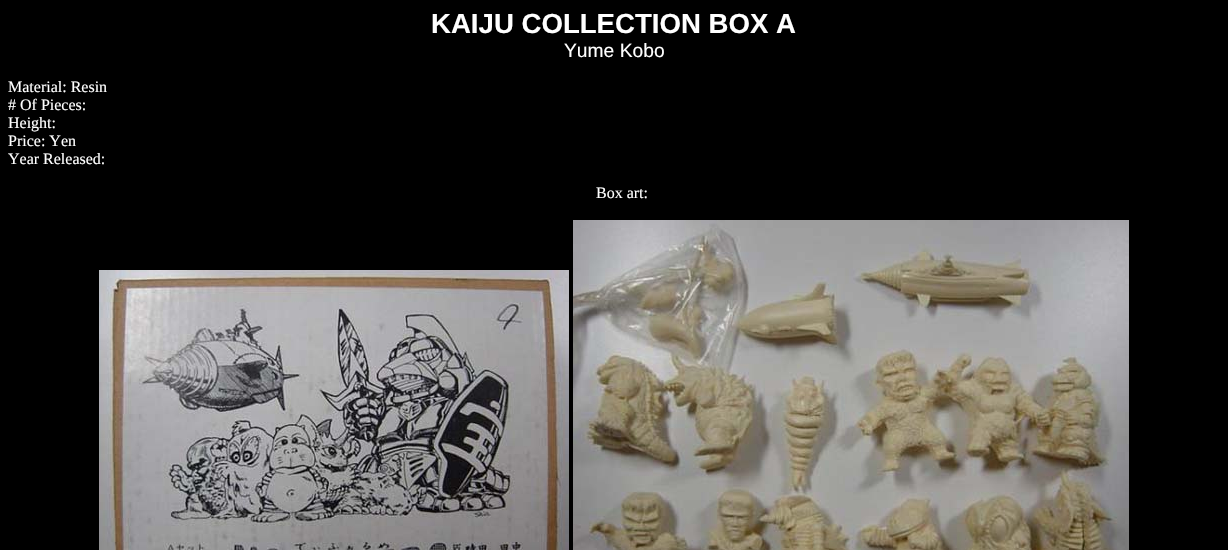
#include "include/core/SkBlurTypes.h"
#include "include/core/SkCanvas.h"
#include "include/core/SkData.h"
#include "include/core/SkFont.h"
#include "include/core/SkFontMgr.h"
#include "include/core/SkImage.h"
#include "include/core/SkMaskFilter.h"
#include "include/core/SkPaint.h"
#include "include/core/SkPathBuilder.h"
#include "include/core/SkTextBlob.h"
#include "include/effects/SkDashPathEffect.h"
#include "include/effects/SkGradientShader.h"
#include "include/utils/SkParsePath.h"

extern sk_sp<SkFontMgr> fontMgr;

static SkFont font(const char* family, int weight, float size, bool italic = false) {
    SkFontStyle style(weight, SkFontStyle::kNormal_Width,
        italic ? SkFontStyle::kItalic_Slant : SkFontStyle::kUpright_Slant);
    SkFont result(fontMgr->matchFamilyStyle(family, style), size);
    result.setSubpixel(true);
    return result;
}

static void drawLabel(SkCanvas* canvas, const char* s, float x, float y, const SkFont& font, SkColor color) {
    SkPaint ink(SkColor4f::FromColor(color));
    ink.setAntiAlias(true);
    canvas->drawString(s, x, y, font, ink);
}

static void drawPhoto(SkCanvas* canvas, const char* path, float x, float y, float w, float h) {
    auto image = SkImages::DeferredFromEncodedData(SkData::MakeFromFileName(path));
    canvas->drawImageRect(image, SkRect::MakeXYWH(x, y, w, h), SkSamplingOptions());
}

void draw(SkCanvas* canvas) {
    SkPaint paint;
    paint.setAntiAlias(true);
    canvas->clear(0xFF000000);
    SkFont font1 = font("Liberation Sans", 700, 27.6f);
    drawLabel(canvas, "KAIJU COLLECTION BOX A", 431, 33, font1, 0xFFFFFFFF);
    SkFont font2 = font("Liberation Sans", 400, 19.25f);
    drawLabel(canvas, "Yume Kobo", 564, 57, font2, 0xFFFFFFFF);
    SkFont font3 = font("Liberation Serif", 400, 16);
    drawLabel(canvas, "Material: Resin", 8, 92, font3, 0xFFFFFFFF);
    drawLabel(canvas, "# Of Pieces:", 8, 110, font3, 0xFFFFFFFF);
    drawLabel(canvas, "Height:", 8, 128, font3, 0xFFFFFFFF);
    drawLabel(canvas, "Price: Yen", 8, 146, font3, 0xFFFFFFFF);
    drawLabel(canvas, "Year Released:", 8, 164, font3, 0xFFFFFFFF);
    drawLabel(canvas, "Box art:", 596, 198, font3, 0xFFFFFFFF);
    drawPhoto(canvas, "assets/img1.png", 99, 270, 470, 280);
    drawPhoto(canvas, "assets/img2.png", 573, 220, 556, 330);
}
